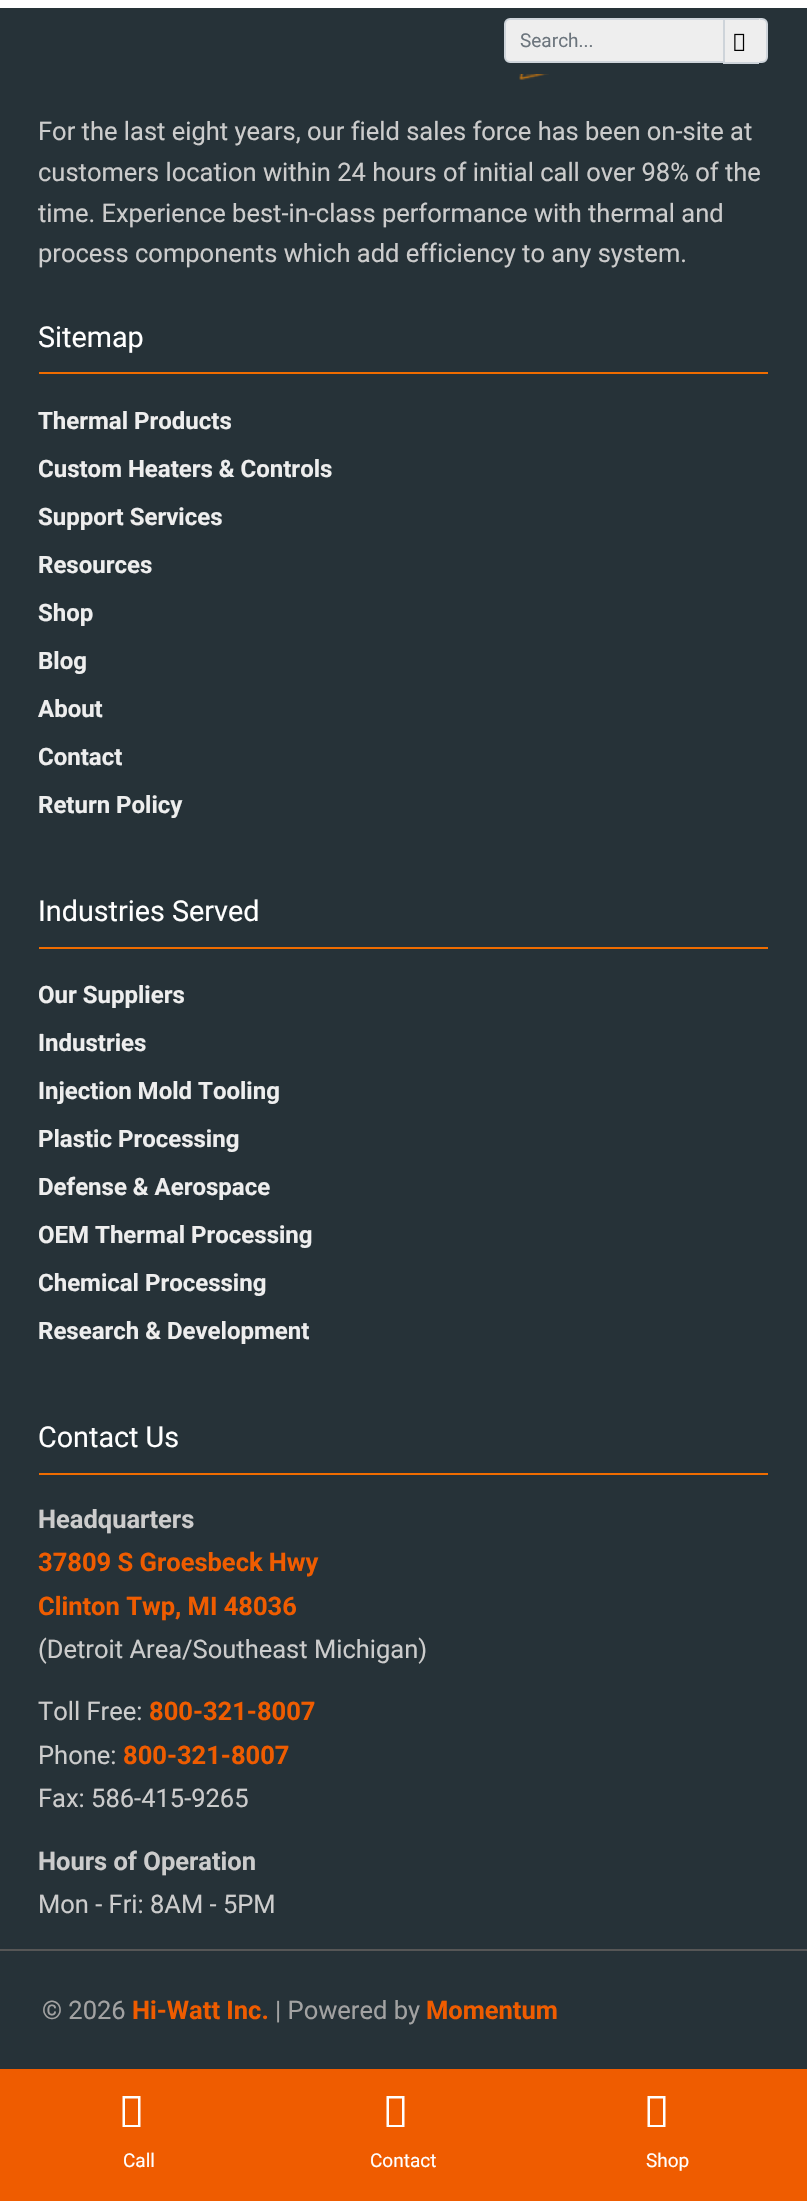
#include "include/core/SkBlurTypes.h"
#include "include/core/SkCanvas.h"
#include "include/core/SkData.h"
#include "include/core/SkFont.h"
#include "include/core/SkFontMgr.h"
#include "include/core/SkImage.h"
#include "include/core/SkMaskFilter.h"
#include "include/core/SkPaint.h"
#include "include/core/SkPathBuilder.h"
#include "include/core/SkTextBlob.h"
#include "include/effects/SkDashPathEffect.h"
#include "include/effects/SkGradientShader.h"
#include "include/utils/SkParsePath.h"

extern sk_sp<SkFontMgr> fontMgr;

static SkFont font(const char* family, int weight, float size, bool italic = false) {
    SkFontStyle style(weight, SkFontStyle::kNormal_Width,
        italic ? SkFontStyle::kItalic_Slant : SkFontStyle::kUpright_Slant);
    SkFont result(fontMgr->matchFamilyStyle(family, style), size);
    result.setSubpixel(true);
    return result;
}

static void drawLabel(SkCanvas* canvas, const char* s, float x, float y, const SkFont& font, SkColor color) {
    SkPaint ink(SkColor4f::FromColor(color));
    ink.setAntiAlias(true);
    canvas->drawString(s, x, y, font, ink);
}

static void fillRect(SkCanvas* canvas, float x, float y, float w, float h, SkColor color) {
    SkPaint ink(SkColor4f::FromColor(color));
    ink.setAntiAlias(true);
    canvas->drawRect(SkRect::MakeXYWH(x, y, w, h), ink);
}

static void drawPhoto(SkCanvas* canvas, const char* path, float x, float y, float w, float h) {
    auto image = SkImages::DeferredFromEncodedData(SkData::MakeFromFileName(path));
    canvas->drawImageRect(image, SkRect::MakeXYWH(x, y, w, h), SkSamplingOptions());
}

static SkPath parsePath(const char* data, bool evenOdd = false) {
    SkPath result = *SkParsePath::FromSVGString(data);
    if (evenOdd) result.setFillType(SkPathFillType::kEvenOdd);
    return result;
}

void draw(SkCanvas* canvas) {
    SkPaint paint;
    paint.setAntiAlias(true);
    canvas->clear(0xFF263238);
    fillRect(canvas, 0, 0, 807, 8, 0xFFFFFFFF);
    paint.setColor(0xFFEEEEEE);
    canvas->drawRoundRect(SkRect::MakeXYWH(505, 19, 262, 43), 5, 5, paint);
    paint.setStroke(true);
    paint.setStrokeWidth(2);
    paint.setColor(0xFFCED4DA);
    canvas->drawRoundRect(SkRect::MakeXYWH(505, 19, 262, 43), 5, 5, paint);
    SkFont font1 = font("Roboto", 400, 19);
    drawLabel(canvas, "Search...", 520, 47, font1, 0xFF6C757D);
    paint.setStroke(false);
    paint.setColor(0xFFEEEEEE);
    canvas->drawPath(parsePath("M723 18H756C759.5 18 762 20.5 762 24V57C762 60.5 759.5 63 756 63H723Z"), paint);
    fillRect(canvas, 723, 18, 36, 2, 0xFFCED4DA);
    fillRect(canvas, 723, 62, 36, 2, 0xFFCED4DA);
    fillRect(canvas, 723, 18, 2, 45, 0xFFCED4DA);
    drawPhoto(canvas, "assets/img1.png", 734, 33, 11, 18);
    drawPhoto(canvas, "assets/img2.png", 519, 74, 30, 6);
    SkFont font2 = font("Roboto", 400, 25.5f);
    drawLabel(canvas, "For the last eight years, our field sales force has been on-site at", 38, 140, font2, 0xFFCCCCCC);
    drawLabel(canvas, "customers location within 24 hours of initial call over 98% of the", 38, 181, font2, 0xFFCCCCCC);
    drawLabel(canvas, "time. Experience best-in-class performance with thermal and", 38, 222, font2, 0xFFCCCCCC);
    drawLabel(canvas, "process components which add efficiency to any system.", 38, 262, font2, 0xFFCCCCCC);
    fillRect(canvas, 39, 372, 729, 2, 0xFFEF6C00);
    SkFont font3 = font("Roboto", 400, 28.75f);
    drawLabel(canvas, "Sitemap", 38, 347, font3, 0xFFFFFFFF);
    SkFont font4 = font("Roboto", 700, 24);
    drawLabel(canvas, "Thermal Products", 38, 429, font4, 0xFFEEEEEE);
    drawLabel(canvas, "Custom Heaters & Controls", 38, 477, font4, 0xFFEEEEEE);
    drawLabel(canvas, "Support Services", 38, 525, font4, 0xFFEEEEEE);
    drawLabel(canvas, "Resources", 38, 573, font4, 0xFFEEEEEE);
    drawLabel(canvas, "Shop", 38, 621, font4, 0xFFEEEEEE);
    drawLabel(canvas, "Blog", 38, 669, font4, 0xFFEEEEEE);
    drawLabel(canvas, "About", 38, 717, font4, 0xFFEEEEEE);
    drawLabel(canvas, "Contact", 38, 765, font4, 0xFFEEEEEE);
    drawLabel(canvas, "Return Policy", 38, 813, font4, 0xFFEEEEEE);
    fillRect(canvas, 39, 947, 729, 2, 0xFFEF6C00);
    drawLabel(canvas, "Industries Served", 38, 921, font3, 0xFFFFFFFF);
    drawLabel(canvas, "Our Suppliers", 38, 1003, font4, 0xFFEEEEEE);
    drawLabel(canvas, "Industries", 38, 1051, font4, 0xFFEEEEEE);
    drawLabel(canvas, "Injection Mold Tooling", 38, 1099, font4, 0xFFEEEEEE);
    drawLabel(canvas, "Plastic Processing", 38, 1147, font4, 0xFFEEEEEE);
    drawLabel(canvas, "Defense & Aerospace", 38, 1195, font4, 0xFFEEEEEE);
    drawLabel(canvas, "OEM Thermal Processing", 38, 1243, font4, 0xFFEEEEEE);
    drawLabel(canvas, "Chemical Processing", 38, 1291, font4, 0xFFEEEEEE);
    drawLabel(canvas, "Research & Development", 38, 1339, font4, 0xFFEEEEEE);
    fillRect(canvas, 39, 1473, 729, 2, 0xFFEF6C00);
    drawLabel(canvas, "Contact Us", 38, 1447, font3, 0xFFFFFFFF);
    SkFont font5 = font("Roboto", 700, 25.5f);
    drawLabel(canvas, "Headquarters", 38, 1528, font5, 0xFFCCCCCC);
    drawLabel(canvas, "37809 S Groesbeck Hwy", 38, 1571, font5, 0xFFEF5C00);
    drawLabel(canvas, "Clinton Twp, MI 48036", 38, 1615, font5, 0xFFEF5C00);
    drawLabel(canvas, "(Detroit Area/Southeast Michigan)", 38, 1658, font2, 0xFFCCCCCC);
    drawLabel(canvas, "Toll Free:", 38, 1720, font2, 0xFFCCCCCC);
    drawLabel(canvas, "800-321-8007", 149, 1720, font5, 0xFFEF5C00);
    drawLabel(canvas, "Phone:", 38, 1764, font2, 0xFFCCCCCC);
    drawLabel(canvas, "800-321-8007", 123, 1764, font5, 0xFFEF5C00);
    drawLabel(canvas, "Fax: 586-415-9265", 38, 1807, font2, 0xFFCCCCCC);
    drawLabel(canvas, "Hours of Operation", 38, 1870, font5, 0xFFCCCCCC);
    drawLabel(canvas, "Mon - Fri: 8AM - 5PM", 38, 1913, font2, 0xFFCCCCCC);
    fillRect(canvas, 0, 1949, 807, 2, 0xFF565656);
    drawLabel(canvas, "© 2026", 42, 2019, font2, 0xFFA2A2A2);
    drawLabel(canvas, "Hi-Watt Inc.", 132, 2019, font5, 0xFFEF5C00);
    drawLabel(canvas, "| Powered by", 275, 2019, font2, 0xFFA2A2A2);
    drawLabel(canvas, "Momentum", 426, 2019, font5, 0xFFEF5C00);
    fillRect(canvas, 0, 2069, 807, 132, 0xFFEF5C00);
    paint.setColor(0xFFFFFFFF);
    canvas->drawPath(parsePath("M122.5 2127V2096H140.5V2127ZM125 2125H138V2098.5H125Z"), paint);
    drawLabel(canvas, "Call", 123, 2167, font1, 0xFFFFFFFF);
    canvas->drawPath(parsePath("M386.5 2127V2096H404.5V2127ZM389 2125H402V2098.5H389Z"), paint);
    drawLabel(canvas, "Contact", 370, 2167, font1, 0xFFFFFFFF);
    canvas->drawPath(parsePath("M647.5 2127V2096H665.5V2127ZM650 2125H663V2098.5H650Z"), paint);
    drawLabel(canvas, "Shop", 646, 2167, font1, 0xFFFFFFFF);
}
